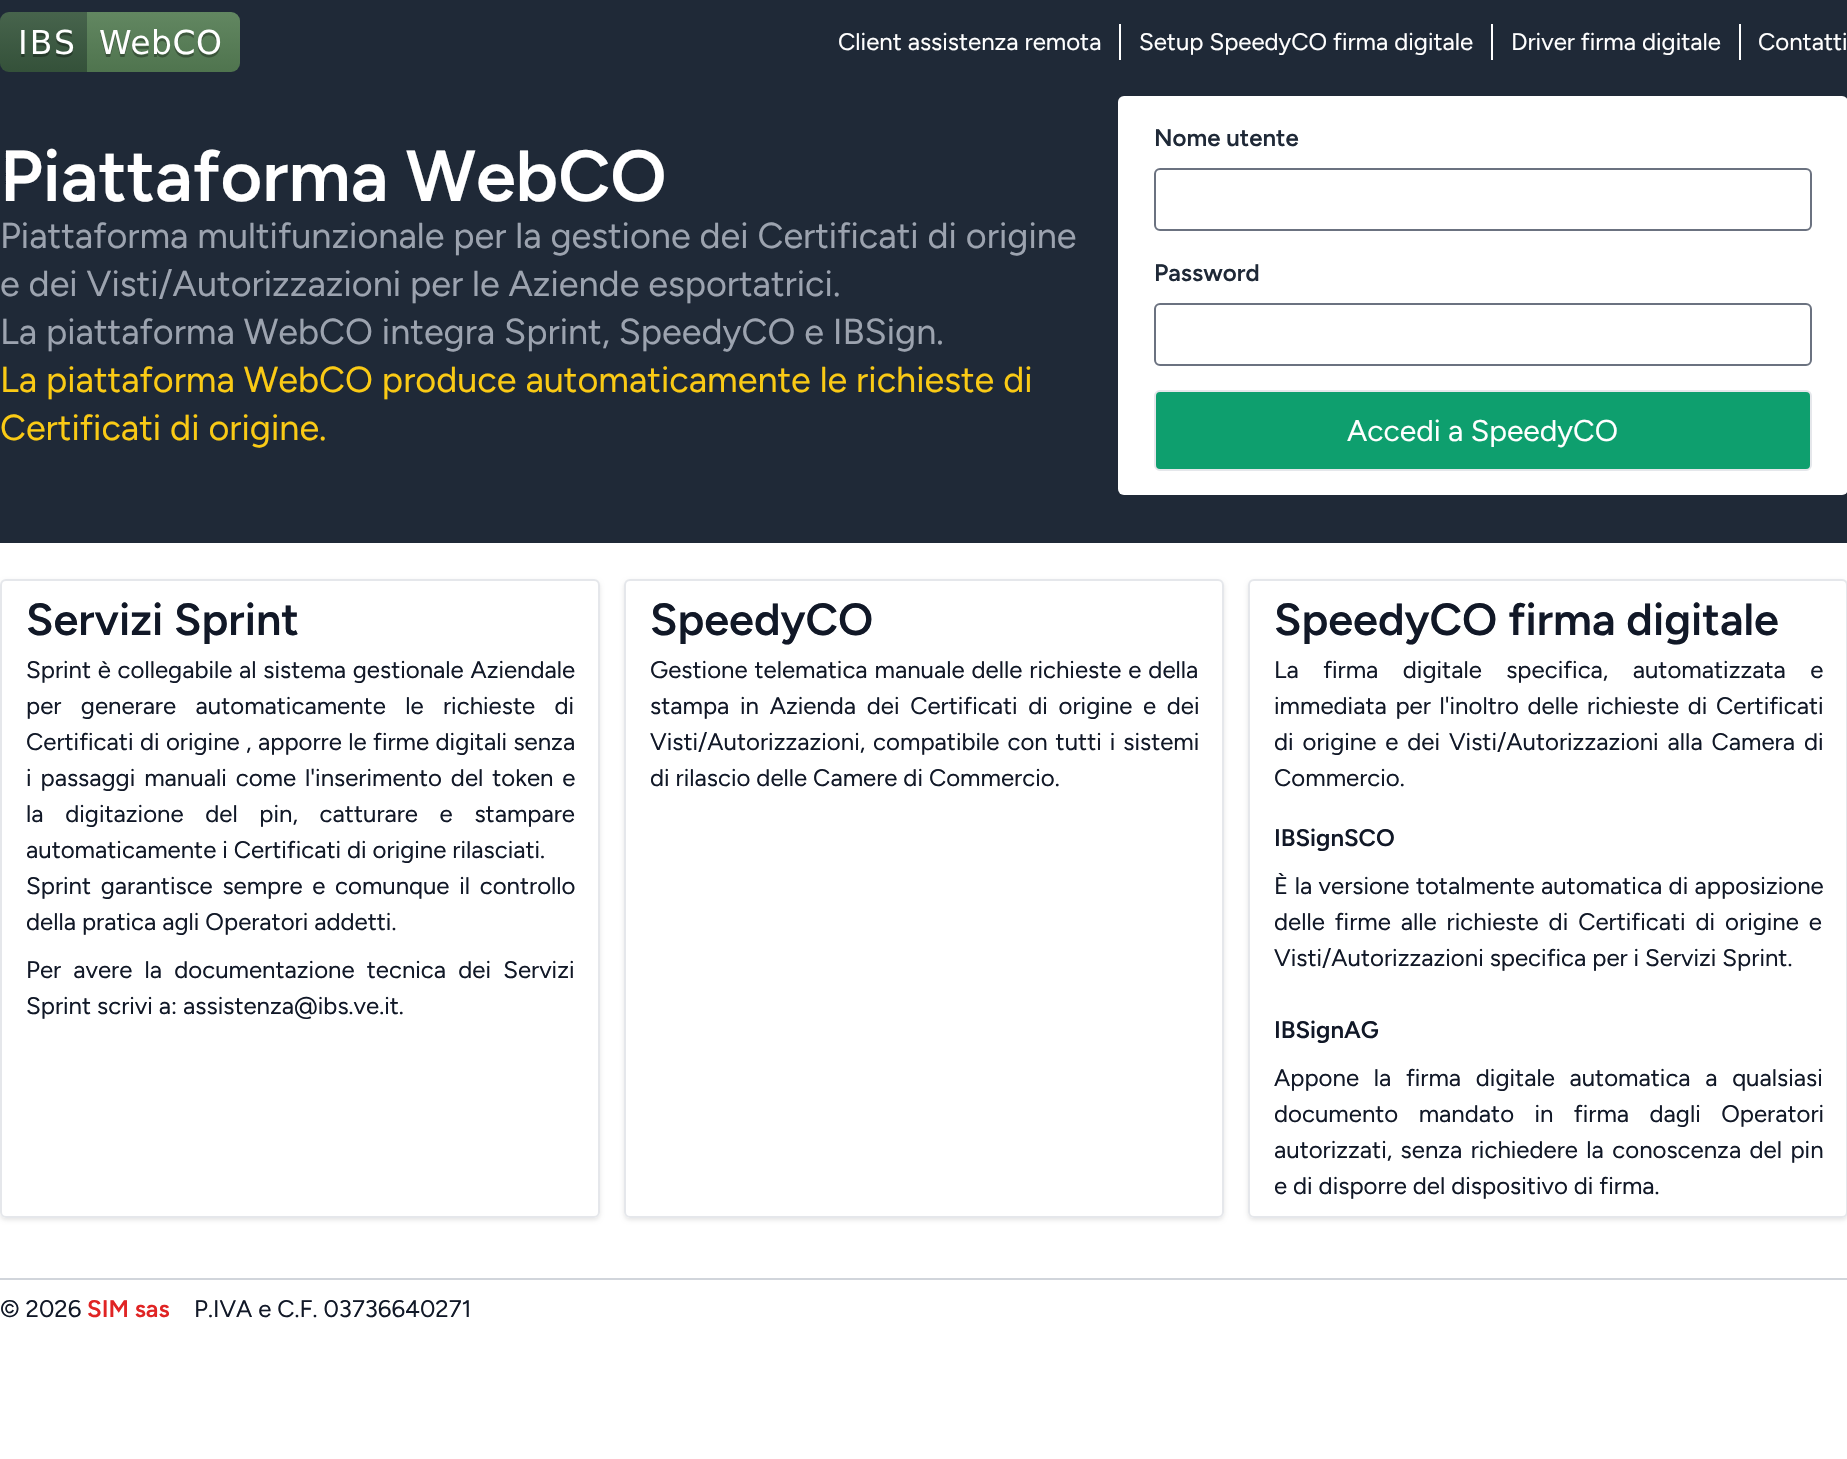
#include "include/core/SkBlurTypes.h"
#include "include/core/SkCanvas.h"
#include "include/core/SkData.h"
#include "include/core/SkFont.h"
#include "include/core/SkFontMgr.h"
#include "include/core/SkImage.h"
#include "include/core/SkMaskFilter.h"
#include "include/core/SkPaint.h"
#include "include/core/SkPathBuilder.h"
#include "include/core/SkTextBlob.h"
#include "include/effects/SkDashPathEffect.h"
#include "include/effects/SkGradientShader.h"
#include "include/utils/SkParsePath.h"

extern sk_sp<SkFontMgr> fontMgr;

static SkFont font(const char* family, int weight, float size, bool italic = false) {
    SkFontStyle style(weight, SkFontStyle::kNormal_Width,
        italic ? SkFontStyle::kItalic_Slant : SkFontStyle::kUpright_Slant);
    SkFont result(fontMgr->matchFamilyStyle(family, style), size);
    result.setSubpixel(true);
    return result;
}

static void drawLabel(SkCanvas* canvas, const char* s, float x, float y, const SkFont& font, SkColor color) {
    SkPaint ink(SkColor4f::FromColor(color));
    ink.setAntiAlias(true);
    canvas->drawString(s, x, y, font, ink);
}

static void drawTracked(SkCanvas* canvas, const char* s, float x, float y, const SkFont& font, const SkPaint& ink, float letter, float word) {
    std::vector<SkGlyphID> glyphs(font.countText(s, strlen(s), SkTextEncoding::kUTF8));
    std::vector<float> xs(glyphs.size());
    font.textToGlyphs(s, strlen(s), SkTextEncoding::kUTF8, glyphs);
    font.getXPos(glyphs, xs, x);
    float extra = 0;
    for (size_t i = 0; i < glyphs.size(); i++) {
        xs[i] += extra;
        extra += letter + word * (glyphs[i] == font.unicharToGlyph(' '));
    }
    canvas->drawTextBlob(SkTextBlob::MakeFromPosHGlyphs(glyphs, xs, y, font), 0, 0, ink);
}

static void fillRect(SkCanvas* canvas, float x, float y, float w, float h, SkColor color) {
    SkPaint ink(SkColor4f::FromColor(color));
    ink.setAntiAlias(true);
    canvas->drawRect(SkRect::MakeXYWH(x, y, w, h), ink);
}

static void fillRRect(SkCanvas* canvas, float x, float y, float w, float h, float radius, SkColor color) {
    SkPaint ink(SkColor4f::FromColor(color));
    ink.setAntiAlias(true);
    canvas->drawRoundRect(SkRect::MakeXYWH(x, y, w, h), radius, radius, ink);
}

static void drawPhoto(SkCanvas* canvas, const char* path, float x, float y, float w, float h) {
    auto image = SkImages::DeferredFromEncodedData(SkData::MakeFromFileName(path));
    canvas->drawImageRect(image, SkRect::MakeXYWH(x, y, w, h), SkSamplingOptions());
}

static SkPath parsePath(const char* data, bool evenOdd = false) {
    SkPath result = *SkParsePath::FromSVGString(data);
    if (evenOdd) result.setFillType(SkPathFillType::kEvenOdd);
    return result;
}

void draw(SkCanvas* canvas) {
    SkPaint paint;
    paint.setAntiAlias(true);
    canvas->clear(0xFFFFFFFF);
    fillRect(canvas, 0, 0, 1847, 543, 0xFF1F2937);
    drawPhoto(canvas, "assets/img1.png", 0, 12, 240, 60);
    SkFont font1 = font("Figtree", 300, 24);
    drawLabel(canvas, "Client assistenza remota", 838, 50, font1, 0xFFFFFFFF);
    fillRect(canvas, 1119, 24, 2, 36, 0xFFFFFFFF);
    drawLabel(canvas, "Setup SpeedyCO firma digitale", 1139, 50, font1, 0xFFFFFFFF);
    fillRect(canvas, 1491, 24, 2, 36, 0xFFFFFFFF);
    drawLabel(canvas, "Driver firma digitale", 1511, 50, font1, 0xFFFFFFFF);
    fillRect(canvas, 1739, 24, 2, 36, 0xFFFFFFFF);
    drawLabel(canvas, "Contatti", 1758, 50, font1, 0xFFFFFFFF);
    SkFont font2 = font("Figtree", 600, 72);
    drawLabel(canvas, "Piattaforma WebCO", 0, 201, font2, 0xFFFFFFFF);
    SkFont font3 = font("Figtree", 300, 36);
    drawLabel(canvas, "Piattaforma multifunzionale per la gestione dei Certificati di origine", 0, 248, font3, 0xFF9CA3AF);
    drawLabel(canvas, "e dei Visti/Autorizzazioni per le Aziende esportatrici.", 0, 296, font3, 0xFF9CA3AF);
    drawLabel(canvas, "La piattaforma WebCO integra Sprint, SpeedyCO e IBSign.", 0, 344, font3, 0xFF9CA3AF);
    drawLabel(canvas, "La piattaforma WebCO produce automaticamente le richieste di", 0, 392, font3, 0xFFFACA15);
    drawLabel(canvas, "Certificati di origine.", 0, 440, font3, 0xFFFACA15);
    fillRRect(canvas, 1118, 96, 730, 399, 6, 0xFFFFFFFF);
    SkFont font4 = font("Figtree", 600, 24);
    drawLabel(canvas, "Nome utente", 1154, 146, font4, 0xFF1F2937);
    paint.setStroke(true);
    paint.setStrokeWidth(2);
    paint.setColor(0xFF6B7280);
    canvas->drawRoundRect(SkRect::MakeXYWH(1155, 169, 656, 61), 5, 5, paint);
    drawLabel(canvas, "Password", 1154, 281, font4, 0xFF1F2937);
    canvas->drawRoundRect(SkRect::MakeXYWH(1155, 304, 656, 61), 5, 5, paint);
    paint.setStroke(false);
    paint.setColor(0xFF0E9F6E);
    canvas->drawRoundRect(SkRect::MakeXYWH(1155, 391, 656, 79), 5, 5, paint);
    paint.setStroke(true);
    paint.setColor(0xFFE5E7EB);
    canvas->drawRoundRect(SkRect::MakeXYWH(1155, 391, 656, 79), 5, 5, paint);
    SkFont font5 = font("Figtree", 300, 30);
    drawLabel(canvas, "Accedi a SpeedyCO", 1347, 441, font5, 0xFFFFFFFF);
    canvas->save();
    canvas->clipPath(parsePath("M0 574H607V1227H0ZM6 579H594C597.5 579 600 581.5 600 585V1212C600 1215.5 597.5 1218 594 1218H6C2.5 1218 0 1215.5 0 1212V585C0 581.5 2.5 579 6 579Z", true), true);
    paint.setStroke(false);
    paint.setColor(0x1A000000);
    paint.setMaskFilter(SkMaskFilter::MakeBlur(kNormal_SkBlurStyle, 2));
    canvas->drawRoundRect(SkRect::MakeXYWH(0, 581, 600, 639), 6, 6, paint);
    paint.setMaskFilter(nullptr);
    canvas->restore();
    paint.setStroke(true);
    paint.setColor(0xFFE5E7EB);
    canvas->drawRoundRect(SkRect::MakeXYWH(1, 580, 598, 637), 5, 5, paint);
    SkFont font6 = font("Figtree", 600, 45);
    drawLabel(canvas, "Servizi Sprint", 26, 635, font6, 0xFF111827);
    paint.setStroke(false);
    paint.setColor(0xFF111827);
    drawTracked(canvas, "Sprint è collegabile al sistema gestionale Aziendale", 26, 678, font1, paint, 0, 0.75f);
    drawTracked(canvas, "per generare automaticamente le richieste di", 26, 714, font1, paint, 0, 13.5f);
    drawTracked(canvas, "Certificati di origine , apporre le firme digitali senza", 26, 750, font1, paint, 0, 0.5f);
    drawTracked(canvas, "i passaggi manuali come l'inserimento del token e", 26, 786, font1, paint, 0, 3);
    drawTracked(canvas, "la digitazione del pin, catturare e stampare", 26, 822, font1, paint, 0, 15.75f);
    drawLabel(canvas, "automaticamente i Certificati di origine rilasciati.", 26, 858, font1, 0xFF111827);
    drawTracked(canvas, "Sprint garantisce sempre e comunque il controllo", 26, 894, font1, paint, 0, 3.75f);
    drawLabel(canvas, "della pratica agli Operatori addetti.", 26, 930, font1, 0xFF111827);
    drawTracked(canvas, "Per avere la documentazione tecnica dei Servizi", 26, 978, font1, paint, 0, 6.25f);
    drawLabel(canvas, "Sprint scrivi a: assistenza@ibs.ve.it.", 26, 1014, font1, 0xFF111827);
    canvas->save();
    canvas->clipPath(parsePath("M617 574H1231V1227H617ZM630 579H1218C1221.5 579 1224 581.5 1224 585V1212C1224 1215.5 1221.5 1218 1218 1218H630C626.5 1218 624 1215.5 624 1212V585C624 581.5 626.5 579 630 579Z", true), true);
    paint.setColor(0x1A000000);
    paint.setMaskFilter(SkMaskFilter::MakeBlur(kNormal_SkBlurStyle, 2));
    canvas->drawRoundRect(SkRect::MakeXYWH(624, 581, 600, 639), 6, 6, paint);
    paint.setMaskFilter(nullptr);
    canvas->restore();
    paint.setStroke(true);
    paint.setColor(0xFFE5E7EB);
    canvas->drawRoundRect(SkRect::MakeXYWH(625, 580, 598, 637), 5, 5, paint);
    drawLabel(canvas, "SpeedyCO", 650, 635, font6, 0xFF111827);
    paint.setStroke(false);
    paint.setColor(0xFF111827);
    drawTracked(canvas, "Gestione telematica manuale delle richieste e della", 650, 678, font1, paint, 0, 1);
    drawTracked(canvas, "stampa in Azienda dei Certificati di origine e dei", 650, 714, font1, paint, 0, 4.75f);
    drawTracked(canvas, "Visti/Autorizzazioni, compatibile con tutti i sistemi", 650, 750, font1, paint, 0, 2);
    drawLabel(canvas, "di rilascio delle Camere di Commercio.", 650, 786, font1, 0xFF111827);
    canvas->save();
    canvas->clipPath(parsePath("M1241 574H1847V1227H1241ZM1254 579H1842C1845.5 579 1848 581.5 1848 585V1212C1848 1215.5 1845.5 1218 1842 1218H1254C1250.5 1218 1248 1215.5 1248 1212V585C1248 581.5 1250.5 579 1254 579Z", true), true);
    paint.setColor(0x1A000000);
    paint.setMaskFilter(SkMaskFilter::MakeBlur(kNormal_SkBlurStyle, 2));
    canvas->drawRoundRect(SkRect::MakeXYWH(1248, 581, 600, 639), 6, 6, paint);
    paint.setMaskFilter(nullptr);
    canvas->restore();
    paint.setStroke(true);
    paint.setColor(0xFFE5E7EB);
    canvas->drawRoundRect(SkRect::MakeXYWH(1249, 580, 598, 637), 5, 5, paint);
    drawLabel(canvas, "SpeedyCO firma digitale", 1274, 635, font6, 0xFF111827);
    paint.setStroke(false);
    paint.setColor(0xFF111827);
    drawTracked(canvas, "La firma digitale specifica, automatizzata e", 1274, 678, font1, paint, 0, 18.5f);
    drawTracked(canvas, "immediata per l'inoltro delle richieste di Certificati", 1274, 714, font1, paint, 0, 2.75f);
    drawTracked(canvas, "di origine e dei Visti/Autorizzazioni alla Camera di", 1274, 750, font1, paint, 0, 3);
    drawLabel(canvas, "Commercio.", 1274, 786, font1, 0xFF111827);
    drawLabel(canvas, "IBSignSCO", 1274, 846, font4, 0xFF111827);
    drawTracked(canvas, "È la versione totalmente automatica di apposizione", 1274, 894, font1, paint, 0, 0.5f);
    drawTracked(canvas, "delle firme alle richieste di Certificati di origine e", 1274, 930, font1, paint, 0, 4);
    drawLabel(canvas, "Visti/Autorizzazioni specifica per i Servizi Sprint.", 1274, 966, font1, 0xFF111827);
    drawLabel(canvas, "IBSignAG", 1274, 1038, font4, 0xFF111827);
    drawTracked(canvas, "Appone la firma digitale automatica a qualsiasi", 1274, 1086, font1, paint, 0, 8.75f);
    drawTracked(canvas, "documento mandato in firma dagli Operatori", 1274, 1122, font1, paint, 0, 14.5f);
    drawTracked(canvas, "autorizzati, senza richiedere la conoscenza del pin", 1274, 1158, font1, paint, 0, 2.5f);
    drawLabel(canvas, "e di disporre del dispositivo di firma.", 1274, 1194, font1, 0xFF111827);
    fillRect(canvas, 0, 1278, 1847, 2, 0xFFD1D5DB);
    drawLabel(canvas, "© 2026", 0, 1317, font1, 0xFF111827);
    drawLabel(canvas, "SIM sas", 87, 1317, font4, 0xFFE02424);
    drawLabel(canvas, "P.IVA e C.F. 03736640271", 194, 1317, font1, 0xFF111827);
}
